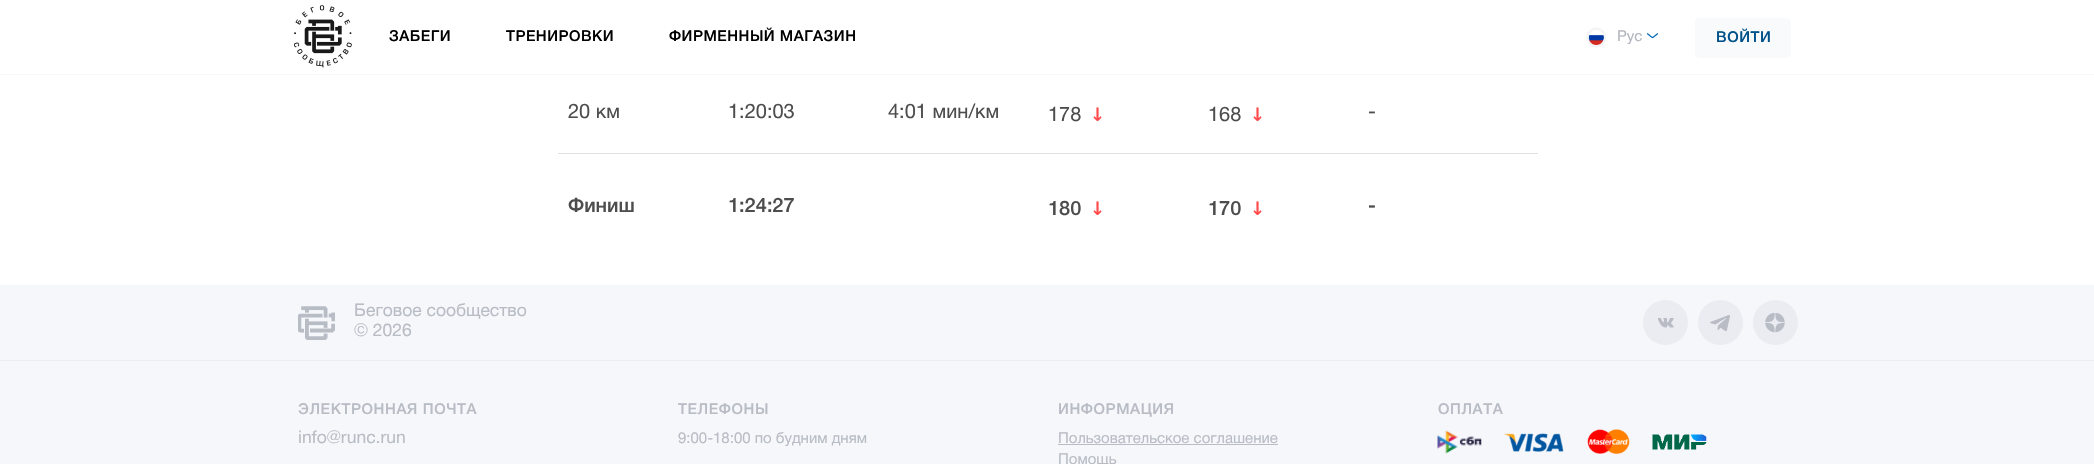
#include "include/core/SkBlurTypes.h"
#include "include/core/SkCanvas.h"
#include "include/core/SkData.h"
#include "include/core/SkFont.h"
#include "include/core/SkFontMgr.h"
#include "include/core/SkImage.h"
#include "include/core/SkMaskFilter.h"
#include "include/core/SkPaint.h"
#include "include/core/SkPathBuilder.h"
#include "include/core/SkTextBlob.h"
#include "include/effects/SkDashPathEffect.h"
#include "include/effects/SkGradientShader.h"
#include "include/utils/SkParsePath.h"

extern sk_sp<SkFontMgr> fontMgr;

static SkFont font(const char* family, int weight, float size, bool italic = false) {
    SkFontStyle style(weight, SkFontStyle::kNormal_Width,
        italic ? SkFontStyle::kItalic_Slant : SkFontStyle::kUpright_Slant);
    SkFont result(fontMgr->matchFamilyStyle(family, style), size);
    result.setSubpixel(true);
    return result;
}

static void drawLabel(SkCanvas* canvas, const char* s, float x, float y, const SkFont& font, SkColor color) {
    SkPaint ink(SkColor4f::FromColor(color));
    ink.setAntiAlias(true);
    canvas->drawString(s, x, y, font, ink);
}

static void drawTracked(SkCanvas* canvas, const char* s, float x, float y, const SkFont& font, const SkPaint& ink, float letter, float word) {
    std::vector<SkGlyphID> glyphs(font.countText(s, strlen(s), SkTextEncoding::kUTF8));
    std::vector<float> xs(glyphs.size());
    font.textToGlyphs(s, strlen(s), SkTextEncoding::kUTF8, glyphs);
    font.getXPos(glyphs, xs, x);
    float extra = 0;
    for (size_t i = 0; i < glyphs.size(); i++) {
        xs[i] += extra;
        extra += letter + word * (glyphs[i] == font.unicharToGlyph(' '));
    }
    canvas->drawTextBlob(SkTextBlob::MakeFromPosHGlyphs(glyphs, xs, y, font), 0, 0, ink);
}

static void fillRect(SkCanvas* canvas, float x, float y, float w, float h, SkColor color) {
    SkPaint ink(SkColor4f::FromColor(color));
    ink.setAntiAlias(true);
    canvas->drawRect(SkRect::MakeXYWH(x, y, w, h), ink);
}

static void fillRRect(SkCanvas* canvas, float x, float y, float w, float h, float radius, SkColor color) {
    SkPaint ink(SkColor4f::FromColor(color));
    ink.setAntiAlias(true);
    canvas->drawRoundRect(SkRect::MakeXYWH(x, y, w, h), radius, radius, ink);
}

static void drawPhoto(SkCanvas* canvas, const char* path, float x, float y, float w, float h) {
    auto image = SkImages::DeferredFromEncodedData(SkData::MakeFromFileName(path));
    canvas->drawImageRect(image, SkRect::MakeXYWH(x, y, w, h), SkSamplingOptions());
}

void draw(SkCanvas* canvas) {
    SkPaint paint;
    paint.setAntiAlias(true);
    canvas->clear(0xFFFFFFFF);
    fillRect(canvas, 0, 74, 2094, 1, 0xFFF6F8FB);
    drawPhoto(canvas, "assets/img1.png", 294, 5, 58, 63);
    SkFont font1 = font("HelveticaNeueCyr", 500, 15);
    paint.setColor(0xFF000000);
    drawTracked(canvas, "ЗАБЕГИ", 389, 41, font1, paint, 0.5f, 0);
    drawTracked(canvas, "ТРЕНИРОВКИ", 506, 41, font1, paint, 0.5f, 0);
    drawTracked(canvas, "ФИРМЕННЫЙ МАГАЗИН", 669, 41, font1, paint, 0.5f, 0);
    drawPhoto(canvas, "assets/img2.png", 1586, 27, 20, 21);
    SkFont font2 = font("HelveticaNeueCyr", 400, 15);
    drawLabel(canvas, "Рус", 1617, 41, font2, 0xFFB1B4BC);
    drawPhoto(canvas, "assets/img3.png", 1646, 33, 13, 6);
    fillRRect(canvas, 1695, 18, 96, 40, 5, 0xFFF8FAFC);
    paint.setColor(0xFF00518A);
    drawTracked(canvas, "ВОЙТИ", 1716, 42, font1, paint, 0.6f, 0);
    fillRect(canvas, 558, 153, 980, 1, 0xFFDDDFE2);
    SkFont font3 = font("HelveticaNeueCyr", 400, 20);
    drawLabel(canvas, "20 км", 568, 118, font3, 0xFF4D4D4D);
    drawLabel(canvas, "1:20:03", 728, 118, font3, 0xFF4D4D4D);
    drawLabel(canvas, "4:01 мин/км", 888, 118, font3, 0xFF4D4D4D);
    drawLabel(canvas, "178", 1048, 121, font3, 0xFF4D4D4D);
    SkFont font4 = font("DejaVu Sans Mono", 400, 25);
    drawLabel(canvas, "↓", 1090, 121, font4, 0xFFFF4C4C);
    drawLabel(canvas, "168", 1208, 121, font3, 0xFF4D4D4D);
    drawLabel(canvas, "↓", 1250, 121, font4, 0xFFFF4C4C);
    drawLabel(canvas, "-", 1368, 118, font3, 0xFF4D4D4D);
    SkFont font5 = font("HelveticaNeueCyr", 500, 20);
    drawLabel(canvas, "Финиш", 568, 212, font5, 0xFF4D4D4D);
    drawLabel(canvas, "1:24:27", 728, 212, font5, 0xFF4D4D4D);
    drawLabel(canvas, "180", 1048, 215, font5, 0xFF4D4D4D);
    drawLabel(canvas, "↓", 1090, 215, font4, 0xFFFF4C4C);
    drawLabel(canvas, "170", 1208, 215, font5, 0xFF4D4D4D);
    drawLabel(canvas, "↓", 1250, 215, font4, 0xFFFF4C4C);
    drawLabel(canvas, "-", 1368, 212, font5, 0xFF4D4D4D);
    fillRect(canvas, 0, 285, 2094, 179, 0xFFF5F7FB);
    fillRect(canvas, 0, 360, 2094, 1, 0xFFEBEDF2);
    drawPhoto(canvas, "assets/img4.png", 298, 306, 37, 34);
    SkFont font6 = font("HelveticaNeueCyr", 400, 17.5f);
    drawLabel(canvas, "Беговое сообщество", 354, 316, font6, 0xFFB8BCC4);
    drawLabel(canvas, "© 2026", 354, 336, font6, 0xFFB8BCC4);
    paint.setColor(0xFFEAECF1);
    canvas->drawCircle(1665.5f, 322.5f, 22.5f, paint);
    drawPhoto(canvas, "assets/img5.png", 1658, 318, 16, 10);
    canvas->drawCircle(1720.5f, 322.5f, 22.5f, paint);
    drawPhoto(canvas, "assets/img6.png", 1710, 315, 20, 16);
    canvas->drawCircle(1775.5f, 322.5f, 22.5f, paint);
    drawPhoto(canvas, "assets/img7.png", 1765, 313, 20, 20);
    paint.setColor(0xFFB8BCC4);
    drawTracked(canvas, "ЭЛЕКТРОННАЯ ПОЧТА", 298, 414, font1, paint, 0.6f, 0);
    drawLabel(canvas, "info@runc.run", 298, 443, font6, 0xFFB8BCC4);
    drawTracked(canvas, "ТЕЛЕФОНЫ", 678, 414, font1, paint, 0.6f, 0);
    drawLabel(canvas, "9:00-18:00 по будним дням", 678, 443, font2, 0xFFB8BCC4);
    drawTracked(canvas, "ИНФОРМАЦИЯ", 1058, 414, font1, paint, 0.6f, 0);
    drawLabel(canvas, "Пользовательское соглашение", 1058, 443, font2, 0xFFB8BCC4);
    fillRect(canvas, 1058, 444, 220, 1, 0xFFB8BCC4);
    drawLabel(canvas, "Помощь", 1058, 464, font2, 0xFFB8BCC4);
    drawTracked(canvas, "ОПЛАТА", 1438, 414, font1, paint, 0.6f, 0);
    drawPhoto(canvas, "assets/img8.png", 1437, 430, 45, 24);
    drawPhoto(canvas, "assets/img9.png", 1504, 433, 60, 19);
    drawPhoto(canvas, "assets/img10.png", 1587, 429, 43, 26);
    drawPhoto(canvas, "assets/img11.png", 1652, 434, 55, 16);
}
